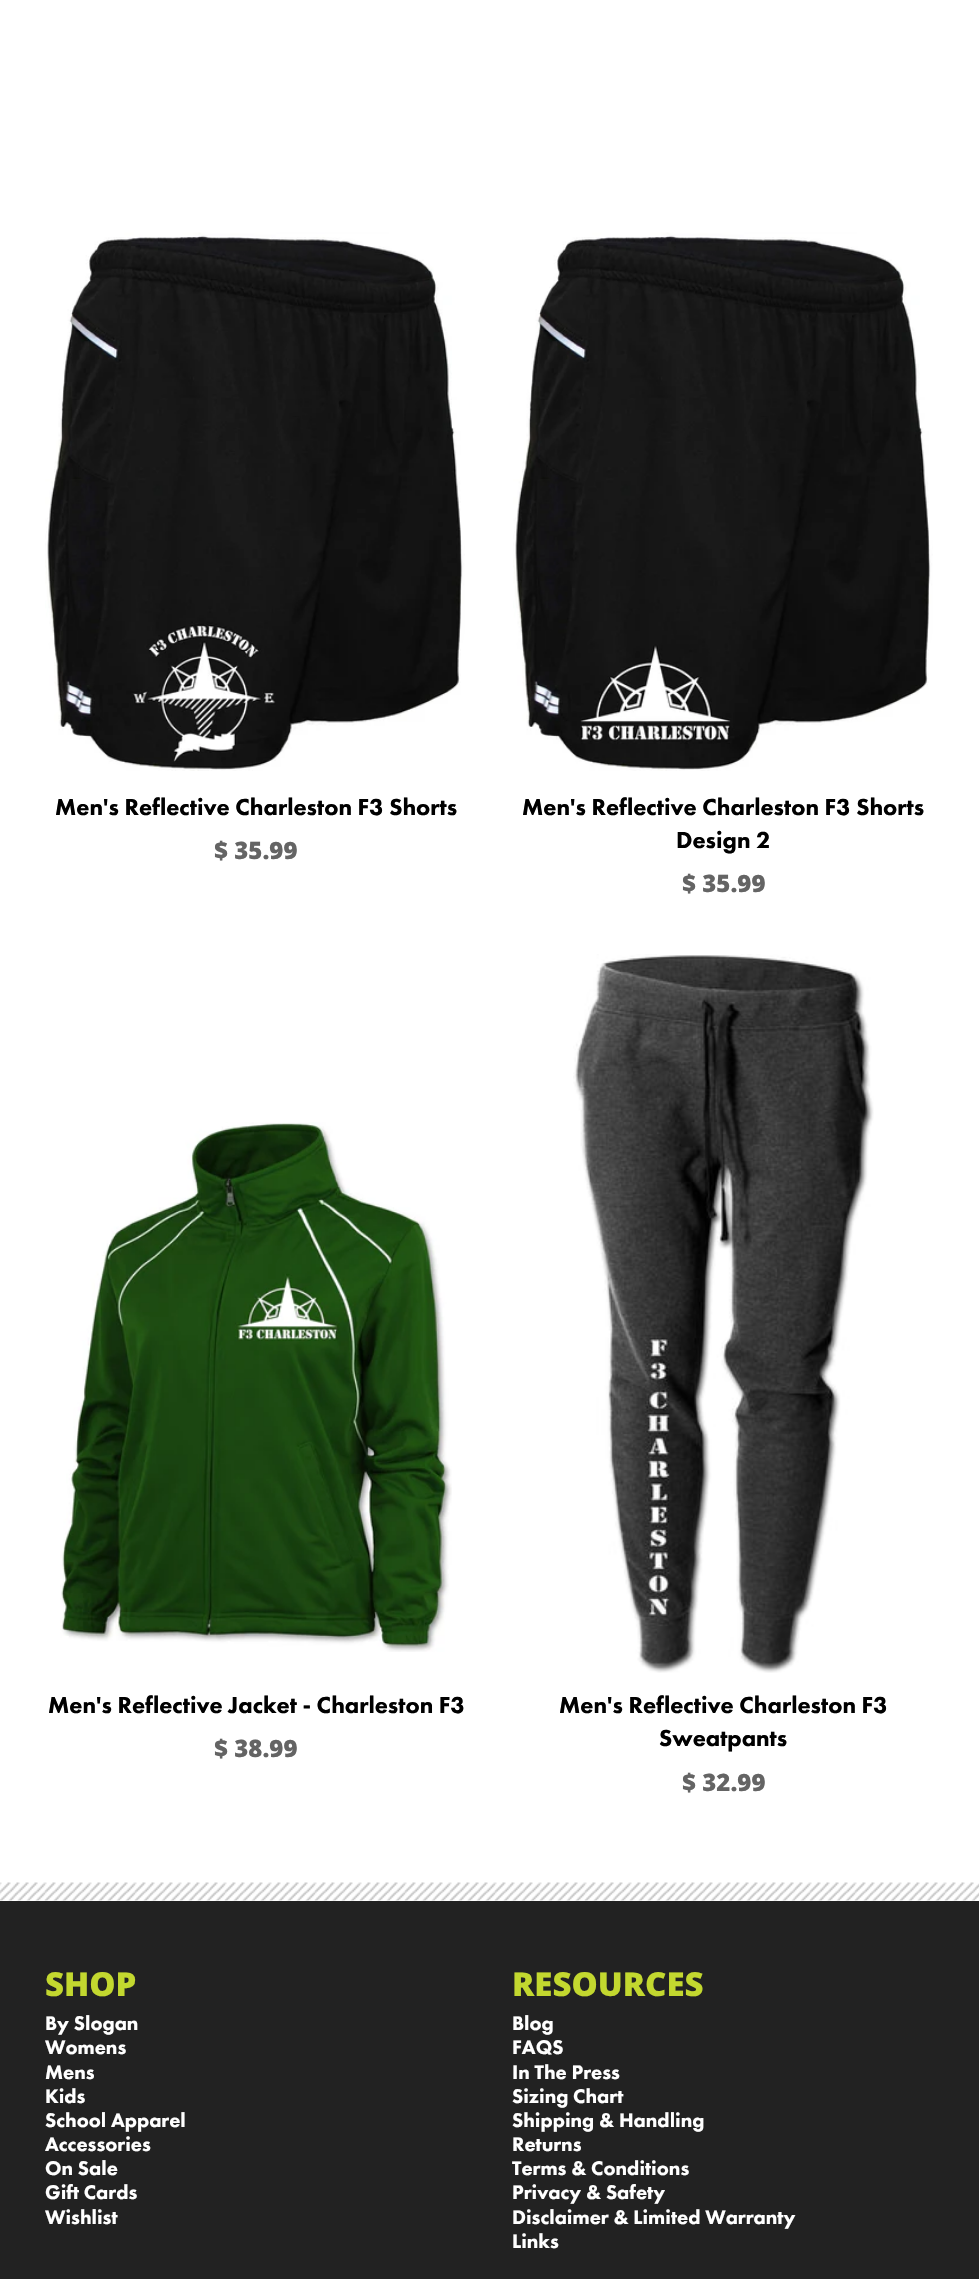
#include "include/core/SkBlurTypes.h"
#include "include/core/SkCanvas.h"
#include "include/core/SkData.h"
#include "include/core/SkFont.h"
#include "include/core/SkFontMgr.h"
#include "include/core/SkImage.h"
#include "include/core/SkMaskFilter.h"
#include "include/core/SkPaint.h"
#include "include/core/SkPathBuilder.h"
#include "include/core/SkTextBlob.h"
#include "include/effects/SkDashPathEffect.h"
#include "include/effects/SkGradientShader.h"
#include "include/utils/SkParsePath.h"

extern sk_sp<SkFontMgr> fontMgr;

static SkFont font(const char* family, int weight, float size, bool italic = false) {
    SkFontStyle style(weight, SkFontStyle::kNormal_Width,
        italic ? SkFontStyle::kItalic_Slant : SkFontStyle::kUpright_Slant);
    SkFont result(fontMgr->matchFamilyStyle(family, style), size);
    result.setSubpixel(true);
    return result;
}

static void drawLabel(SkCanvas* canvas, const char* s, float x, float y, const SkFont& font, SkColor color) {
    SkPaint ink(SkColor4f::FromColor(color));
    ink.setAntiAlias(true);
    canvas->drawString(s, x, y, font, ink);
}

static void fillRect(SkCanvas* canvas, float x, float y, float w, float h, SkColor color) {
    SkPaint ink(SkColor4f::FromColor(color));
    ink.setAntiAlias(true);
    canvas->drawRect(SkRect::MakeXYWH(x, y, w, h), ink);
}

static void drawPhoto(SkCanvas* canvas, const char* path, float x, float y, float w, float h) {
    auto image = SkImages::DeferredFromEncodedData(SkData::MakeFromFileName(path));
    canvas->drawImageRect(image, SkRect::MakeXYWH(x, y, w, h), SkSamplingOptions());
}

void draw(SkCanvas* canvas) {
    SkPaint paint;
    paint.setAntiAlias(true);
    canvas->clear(0xFFFFFFFF);
    drawPhoto(canvas, "assets/img1.png", 45, 232, 420, 539);
    SkFont font1 = font("Futura PT", 900, 24);
    drawLabel(canvas, "Men's Reflective Charleston F3 Shorts", 55, 815, font1, 0xFF000000);
    SkFont font2 = font("Open Sans", 800, 24);
    drawLabel(canvas, "$ 35.99", 214, 859, font2, 0xFF646464);
    drawPhoto(canvas, "assets/img2.png", 513, 232, 420, 539);
    drawLabel(canvas, "Men's Reflective Charleston F3 Shorts", 522, 815, font1, 0xFF000000);
    drawLabel(canvas, "Design 2", 676, 848, font1, 0xFF000000);
    drawLabel(canvas, "$ 35.99", 682, 892, font2, 0xFF646464);
    drawPhoto(canvas, "assets/img3.png", 60, 1122, 392, 530);
    drawLabel(canvas, "Men's Reflective Jacket - Charleston F3", 48, 1713, font1, 0xFF000000);
    drawLabel(canvas, "$ 38.99", 214, 1757, font2, 0xFF646464);
    drawPhoto(canvas, "assets/img4.png", 573, 954, 301, 719);
    drawLabel(canvas, "Men's Reflective Charleston F3", 559, 1713, font1, 0xFF000000);
    drawLabel(canvas, "Sweatpants", 659, 1746, font1, 0xFF000000);
    drawLabel(canvas, "$ 32.99", 682, 1791, font2, 0xFF646464);
    drawPhoto(canvas, "assets/img5.png", 0, 1882, 979, 19);
    fillRect(canvas, 0, 1901, 979, 378, 0xFF222222);
    SkFont font3 = font("Open Sans", 800, 33);
    drawLabel(canvas, "SHOP", 45, 1996, font3, 0xFFC3D82F);
    SkFont font4 = font("Futura PT", 900, 20.4f);
    drawLabel(canvas, "By Slogan", 45, 2030, font4, 0xFFFFFFFF);
    drawLabel(canvas, "Womens", 45, 2054, font4, 0xFFFFFFFF);
    drawLabel(canvas, "Mens", 45, 2079, font4, 0xFFFFFFFF);
    drawLabel(canvas, "Kids", 45, 2103, font4, 0xFFFFFFFF);
    drawLabel(canvas, "School Apparel", 45, 2127, font4, 0xFFFFFFFF);
    drawLabel(canvas, "Accessories", 45, 2151, font4, 0xFFFFFFFF);
    drawLabel(canvas, "On Sale", 45, 2175, font4, 0xFFFFFFFF);
    drawLabel(canvas, "Gift Cards", 45, 2199, font4, 0xFFFFFFFF);
    drawLabel(canvas, "Wishlist", 45, 2224, font4, 0xFFFFFFFF);
    drawLabel(canvas, "RESOURCES", 512, 1996, font3, 0xFFC3D82F);
    drawLabel(canvas, "Blog", 512, 2030, font4, 0xFFFFFFFF);
    drawLabel(canvas, "FAQS", 512, 2054, font4, 0xFFFFFFFF);
    drawLabel(canvas, "In The Press", 512, 2079, font4, 0xFFFFFFFF);
    drawLabel(canvas, "Sizing Chart", 512, 2103, font4, 0xFFFFFFFF);
    drawLabel(canvas, "Shipping & Handling", 512, 2127, font4, 0xFFFFFFFF);
    drawLabel(canvas, "Returns", 512, 2151, font4, 0xFFFFFFFF);
    drawLabel(canvas, "Terms & Conditions", 512, 2175, font4, 0xFFFFFFFF);
    drawLabel(canvas, "Privacy & Safety", 512, 2199, font4, 0xFFFFFFFF);
    drawLabel(canvas, "Disclaimer & Limited Warranty", 512, 2224, font4, 0xFFFFFFFF);
    drawLabel(canvas, "Links", 512, 2248, font4, 0xFFFFFFFF);
}
